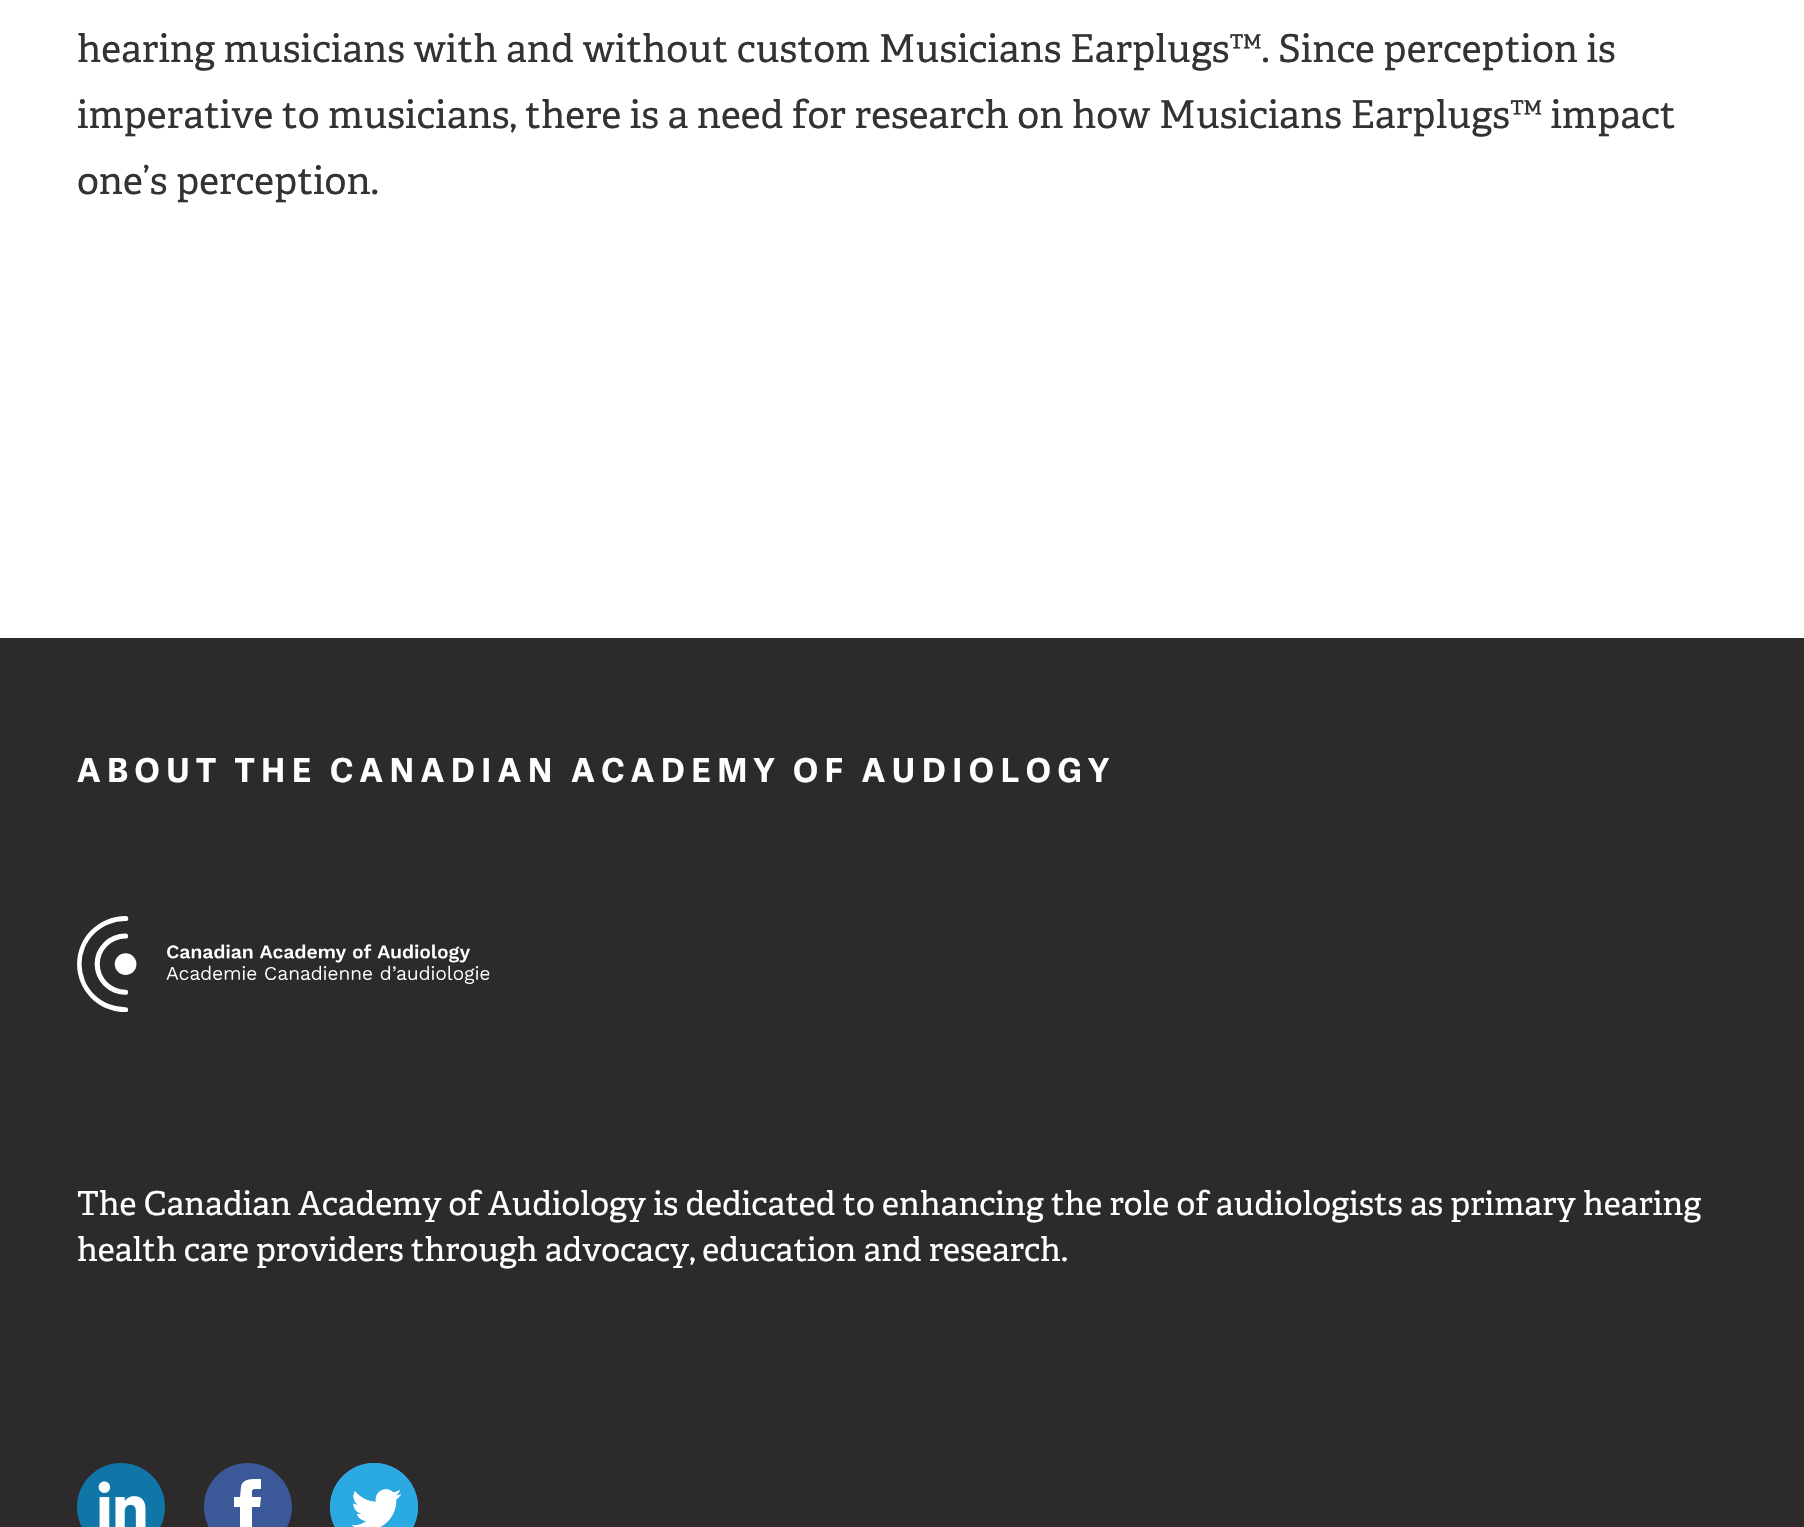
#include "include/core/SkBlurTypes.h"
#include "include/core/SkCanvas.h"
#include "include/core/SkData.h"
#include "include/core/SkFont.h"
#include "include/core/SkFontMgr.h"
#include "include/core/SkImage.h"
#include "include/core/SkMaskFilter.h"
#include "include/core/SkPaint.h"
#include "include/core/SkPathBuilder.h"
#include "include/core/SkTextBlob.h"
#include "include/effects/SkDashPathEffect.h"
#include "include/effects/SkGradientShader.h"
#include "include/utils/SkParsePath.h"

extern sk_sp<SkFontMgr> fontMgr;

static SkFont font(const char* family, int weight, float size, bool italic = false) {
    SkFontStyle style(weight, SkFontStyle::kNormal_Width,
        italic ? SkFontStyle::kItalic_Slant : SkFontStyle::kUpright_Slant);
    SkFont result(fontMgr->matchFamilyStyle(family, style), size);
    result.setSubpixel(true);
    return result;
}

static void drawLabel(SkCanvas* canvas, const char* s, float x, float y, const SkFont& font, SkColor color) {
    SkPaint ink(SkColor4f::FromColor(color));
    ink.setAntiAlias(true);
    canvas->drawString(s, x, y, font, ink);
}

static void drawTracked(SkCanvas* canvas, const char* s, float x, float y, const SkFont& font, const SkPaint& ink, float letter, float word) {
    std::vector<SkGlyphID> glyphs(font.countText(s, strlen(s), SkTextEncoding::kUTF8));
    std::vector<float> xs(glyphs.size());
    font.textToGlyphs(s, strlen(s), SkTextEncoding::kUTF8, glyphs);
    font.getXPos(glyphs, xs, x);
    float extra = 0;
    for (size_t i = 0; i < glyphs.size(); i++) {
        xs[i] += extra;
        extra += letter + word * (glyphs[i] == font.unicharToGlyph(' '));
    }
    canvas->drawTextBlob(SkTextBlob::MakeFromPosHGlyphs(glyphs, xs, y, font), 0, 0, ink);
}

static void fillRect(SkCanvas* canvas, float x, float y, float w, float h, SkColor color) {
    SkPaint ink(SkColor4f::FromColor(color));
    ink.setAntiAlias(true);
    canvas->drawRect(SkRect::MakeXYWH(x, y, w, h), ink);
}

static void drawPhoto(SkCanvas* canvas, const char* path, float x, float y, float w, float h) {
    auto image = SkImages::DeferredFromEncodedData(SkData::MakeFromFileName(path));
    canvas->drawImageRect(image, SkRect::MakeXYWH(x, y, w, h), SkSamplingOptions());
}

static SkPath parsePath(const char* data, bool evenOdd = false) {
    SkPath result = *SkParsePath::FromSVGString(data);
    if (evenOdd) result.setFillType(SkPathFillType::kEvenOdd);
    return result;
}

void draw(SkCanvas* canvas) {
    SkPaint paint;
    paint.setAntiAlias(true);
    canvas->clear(0xFF2D2A2B);
    fillRect(canvas, 0, 0, 1804, 638, 0xFFFFFFFF);
    SkFont font1 = font("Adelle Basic", 400, 38.5f);
    drawLabel(canvas, "hearing musicians with and without custom Musicians Earplugs™. Since perception is", 77, 62, font1, 0xFF333333);
    drawLabel(canvas, "imperative to musicians, there is a need for research on how Musicians Earplugs™ impact", 77, 128, font1, 0xFF333333);
    drawLabel(canvas, "one’s perception.", 77, 194, font1, 0xFF333333);
    SkFont font2 = font("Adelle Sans", 700, 33);
    paint.setColor(0xFFFFFFFF);
    drawTracked(canvas, "ABOUT THE CANADIAN ACADEMY OF AUDIOLOGY", 77, 782, font2, paint, 6.6f, 0);
    drawPhoto(canvas, "assets/img1.png", 77, 916, 413, 96);
    SkFont font3 = font("Adelle Basic", 400, 33);
    drawTracked(canvas, "The Canadian Academy of Audiology is dedicated to enhancing the role of audiologists as primary hearing", 77, 1215, font3, paint, 0, -0.1f);
    drawTracked(canvas, "health care providers through advocacy, education and research.", 77, 1261, font3, paint, 0, -0.25f);
    drawPhoto(canvas, "assets/img2.png", 77, 1463, 88, 64);
    fillRect(canvas, 234, 1479, 27, 48, 0xFFFFFFFF);
    paint.setColor(0xFF3B5999);
    canvas->drawPath(parsePath("M248 1463C223 1463 204 1483 204 1507C204 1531 223 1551 248 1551C272 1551 292 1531 292 1507C292 1483 272 1463 248 1463ZM261 1489C251 1489 252 1488 252 1497H261L260 1507H252V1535H240V1507H234V1497H240L241 1487C242 1478 253 1479 261 1479Z"), paint);
    drawPhoto(canvas, "assets/img3.png", 330, 1463, 88, 64);
}
